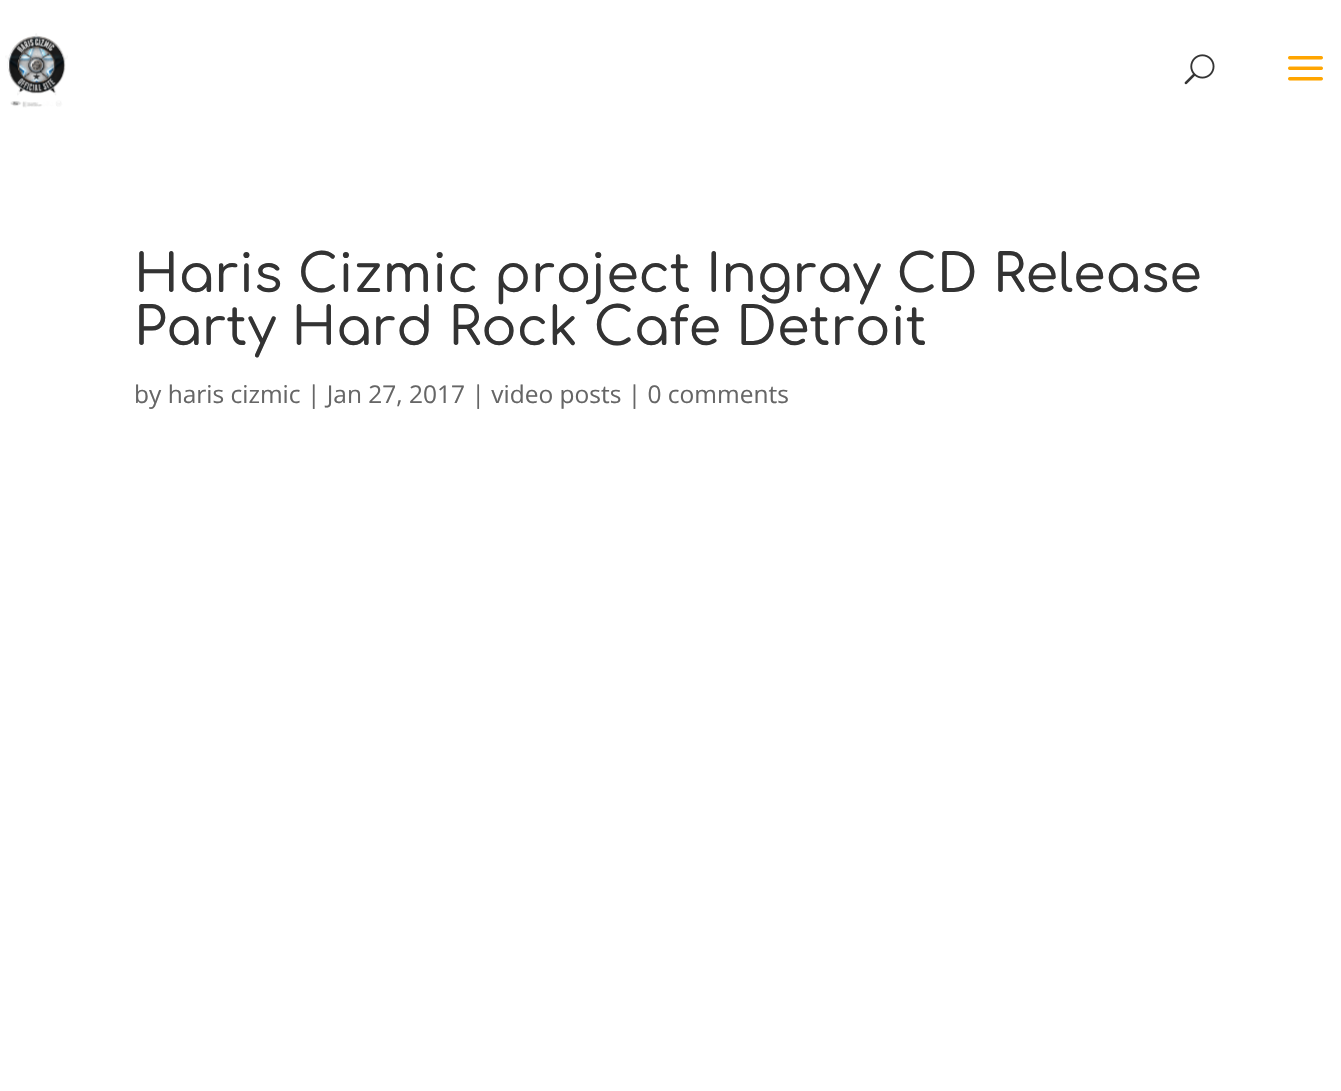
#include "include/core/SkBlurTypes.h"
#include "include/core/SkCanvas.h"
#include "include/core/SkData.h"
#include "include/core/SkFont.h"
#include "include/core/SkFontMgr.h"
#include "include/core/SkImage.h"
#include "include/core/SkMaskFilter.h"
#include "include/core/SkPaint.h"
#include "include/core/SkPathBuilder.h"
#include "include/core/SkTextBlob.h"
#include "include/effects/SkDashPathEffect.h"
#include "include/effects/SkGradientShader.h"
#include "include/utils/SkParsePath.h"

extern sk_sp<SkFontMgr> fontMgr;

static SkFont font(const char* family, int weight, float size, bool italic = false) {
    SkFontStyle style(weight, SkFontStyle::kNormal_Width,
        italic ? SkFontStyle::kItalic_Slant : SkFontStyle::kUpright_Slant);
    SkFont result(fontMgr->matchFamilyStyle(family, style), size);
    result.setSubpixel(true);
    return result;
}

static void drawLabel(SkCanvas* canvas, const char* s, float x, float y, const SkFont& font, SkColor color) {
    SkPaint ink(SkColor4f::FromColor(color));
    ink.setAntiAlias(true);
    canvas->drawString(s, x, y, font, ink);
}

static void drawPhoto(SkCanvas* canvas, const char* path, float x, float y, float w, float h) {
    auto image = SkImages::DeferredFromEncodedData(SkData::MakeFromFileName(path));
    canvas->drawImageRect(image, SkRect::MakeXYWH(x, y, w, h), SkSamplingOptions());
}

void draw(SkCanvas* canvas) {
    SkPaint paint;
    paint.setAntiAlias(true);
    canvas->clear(0xFFFFFFFF);
    drawPhoto(canvas, "assets/img1.png", 5, 33, 63, 75);
    drawPhoto(canvas, "assets/img2.png", 1184, 54, 31, 31);
    drawPhoto(canvas, "assets/img3.png", 1288, 56, 35, 25);
    SkFont font1 = font("Comfortaa", 500, 52.5f);
    drawLabel(canvas, "Haris Cizmic project Ingray CD Release", 134, 292, font1, 0xFF333333);
    drawLabel(canvas, "Party Hard Rock Cafe Detroit", 134, 345, font1, 0xFF333333);
    SkFont font2 = font("Open Sans", 400, 24.5f);
    drawLabel(canvas, "by haris cizmic | Jan 27, 2017 | video posts | 0 comments", 134, 403, font2, 0xFF666666);
}
